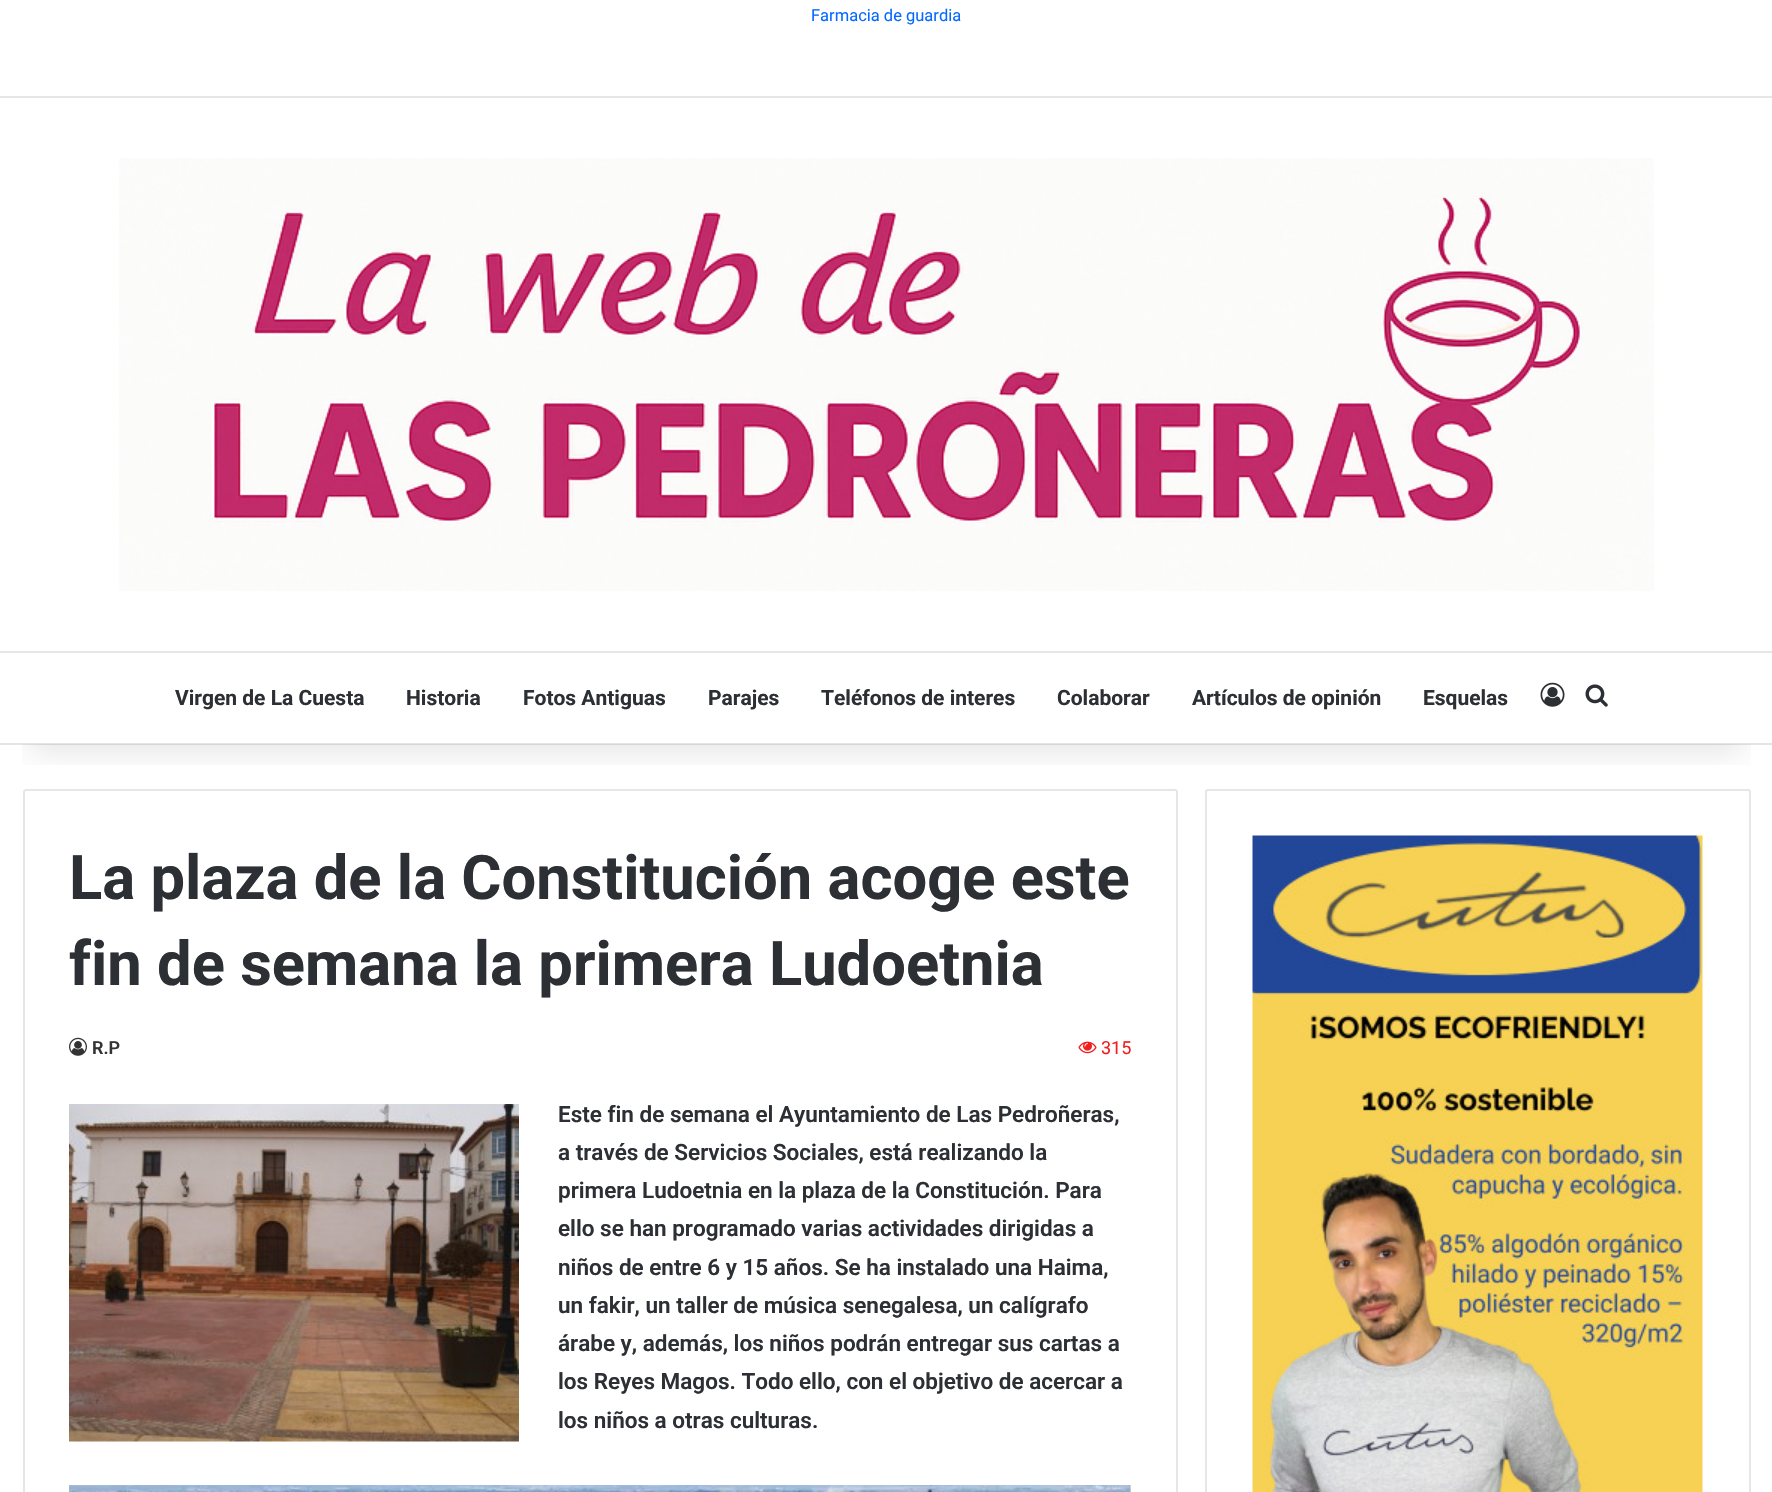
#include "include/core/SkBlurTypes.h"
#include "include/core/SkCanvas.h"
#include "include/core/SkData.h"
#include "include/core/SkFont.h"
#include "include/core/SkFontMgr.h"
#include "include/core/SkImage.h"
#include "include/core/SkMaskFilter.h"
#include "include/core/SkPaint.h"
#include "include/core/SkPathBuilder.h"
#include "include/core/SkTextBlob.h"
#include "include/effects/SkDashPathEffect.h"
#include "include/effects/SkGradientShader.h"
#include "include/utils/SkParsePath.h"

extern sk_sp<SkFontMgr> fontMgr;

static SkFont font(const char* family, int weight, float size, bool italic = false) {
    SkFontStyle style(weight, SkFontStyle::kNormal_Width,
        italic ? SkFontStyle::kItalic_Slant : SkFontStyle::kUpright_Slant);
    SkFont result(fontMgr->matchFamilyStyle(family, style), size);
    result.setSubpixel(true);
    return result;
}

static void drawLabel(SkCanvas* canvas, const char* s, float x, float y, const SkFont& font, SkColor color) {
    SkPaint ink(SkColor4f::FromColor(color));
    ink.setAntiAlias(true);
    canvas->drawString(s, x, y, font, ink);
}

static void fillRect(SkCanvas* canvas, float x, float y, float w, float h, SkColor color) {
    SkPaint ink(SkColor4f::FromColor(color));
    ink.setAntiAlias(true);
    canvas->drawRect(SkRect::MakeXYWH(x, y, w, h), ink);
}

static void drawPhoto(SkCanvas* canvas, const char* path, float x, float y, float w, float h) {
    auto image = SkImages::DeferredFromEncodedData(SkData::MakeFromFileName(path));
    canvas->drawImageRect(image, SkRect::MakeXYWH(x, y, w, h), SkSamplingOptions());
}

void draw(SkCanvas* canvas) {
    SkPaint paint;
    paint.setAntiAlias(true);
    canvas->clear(0xFFFFFFFF);
    SkFont font1 = font("Roboto", 400, 16.5f);
    drawLabel(canvas, "Farmacia de guardia", 811, 21, font1, 0xFF0669FF);
    paint.setStroke(true);
    paint.setStrokeWidth(2);
    paint.setColor(0xFFE6E6E6);
    canvas->drawRoundRect(SkRect::MakeXYWH(24, 790, 1153, 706), 2, 2, paint);
    canvas->drawRoundRect(SkRect::MakeXYWH(1206, 790, 544, 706), 2, 2, paint);
    canvas->save();
    canvas->clipRect(SkRect::MakeXYWH(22, 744, 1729, 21));
    paint.setStroke(false);
    paint.setColor(0x1A000000);
    paint.setMaskFilter(SkMaskFilter::MakeBlur(kNormal_SkBlurStyle, 15));
    canvas->drawRect(SkRect::MakeXYWH(30, 104, 1713, 648), paint);
    paint.setMaskFilter(nullptr);
    canvas->restore();
    fillRect(canvas, 0, 96, 1772, 2, 0xFFE6E6E6);
    drawPhoto(canvas, "assets/img1.png", 119, 158, 1535, 433);
    fillRect(canvas, 0, 651, 1772, 2, 0xFFE6E6E6);
    fillRect(canvas, 0, 743, 1772, 2, 0x1A000000);
    SkFont font2 = font("Roboto", 700, 21);
    drawLabel(canvas, "Virgen de La Cuesta", 175, 705, font2, 0xFF2C2F34);
    drawLabel(canvas, "Historia", 406, 705, font2, 0xFF2C2F34);
    drawLabel(canvas, "Fotos Antiguas", 523, 705, font2, 0xFF2C2F34);
    drawLabel(canvas, "Parajes", 708, 705, font2, 0xFF2C2F34);
    drawLabel(canvas, "Teléfonos de interes", 821, 705, font2, 0xFF2C2F34);
    drawLabel(canvas, "Colaborar", 1057, 705, font2, 0xFF2C2F34);
    drawLabel(canvas, "Artículos de opinión", 1192, 705, font2, 0xFF2C2F34);
    drawLabel(canvas, "Esquelas", 1423, 705, font2, 0xFF2C2F34);
    drawPhoto(canvas, "assets/img2.png", 1540, 682, 25, 25);
    drawPhoto(canvas, "assets/img3.png", 1585, 684, 23, 23);
    SkFont font3 = font("Roboto", 700, 61.5f);
    drawLabel(canvas, "La plaza de la Constitución acoge este", 69, 899, font3, 0xFF2C2F34);
    drawLabel(canvas, "fin de semana la primera Ludoetnia", 69, 985, font3, 0xFF2C2F34);
    drawPhoto(canvas, "assets/img4.png", 69, 1037, 18, 19);
    SkFont font4 = font("Roboto", 600, 18);
    drawLabel(canvas, "R.P", 92, 1054, font4, 0xFF333333);
    drawPhoto(canvas, "assets/img5.png", 1078, 1041, 19, 13);
    SkFont font5 = font("Roboto", 400, 18);
    drawLabel(canvas, "315", 1101, 1054, font5, 0xFFF11E1E);
    drawPhoto(canvas, "assets/img6.png", 69, 1104, 450, 338);
    SkFont font6 = font("Roboto", 600, 22.5f);
    drawLabel(canvas, "Este fin de semana el Ayuntamiento de Las Pedroñeras,", 558, 1122, font6, 0xFF2C2F34);
    drawLabel(canvas, "a través de Servicios Sociales, está realizando la", 558, 1160, font6, 0xFF2C2F34);
    drawLabel(canvas, "primera Ludoetnia en la plaza de la Constitución. Para", 558, 1198, font6, 0xFF2C2F34);
    drawLabel(canvas, "ello se han programado varias actividades dirigidas a", 558, 1236, font6, 0xFF2C2F34);
    drawLabel(canvas, "niños de entre 6 y 15 años. Se ha instalado una Haima,", 558, 1275, font6, 0xFF2C2F34);
    drawLabel(canvas, "un fakir, un taller de música senegalesa, un calígrafo", 558, 1313, font6, 0xFF2C2F34);
    drawLabel(canvas, "árabe y, además, los niños podrán entregar sus cartas a", 558, 1351, font6, 0xFF2C2F34);
    drawLabel(canvas, "los Reyes Magos. Todo ello, con el objetivo de acercar a", 558, 1389, font6, 0xFF2C2F34);
    drawLabel(canvas, "los niños a otras culturas.", 558, 1428, font6, 0xFF2C2F34);
    drawPhoto(canvas, "assets/img7.png", 69, 1485, 1062, 7);
    drawPhoto(canvas, "assets/img8.png", 1252, 835, 451, 657);
}
